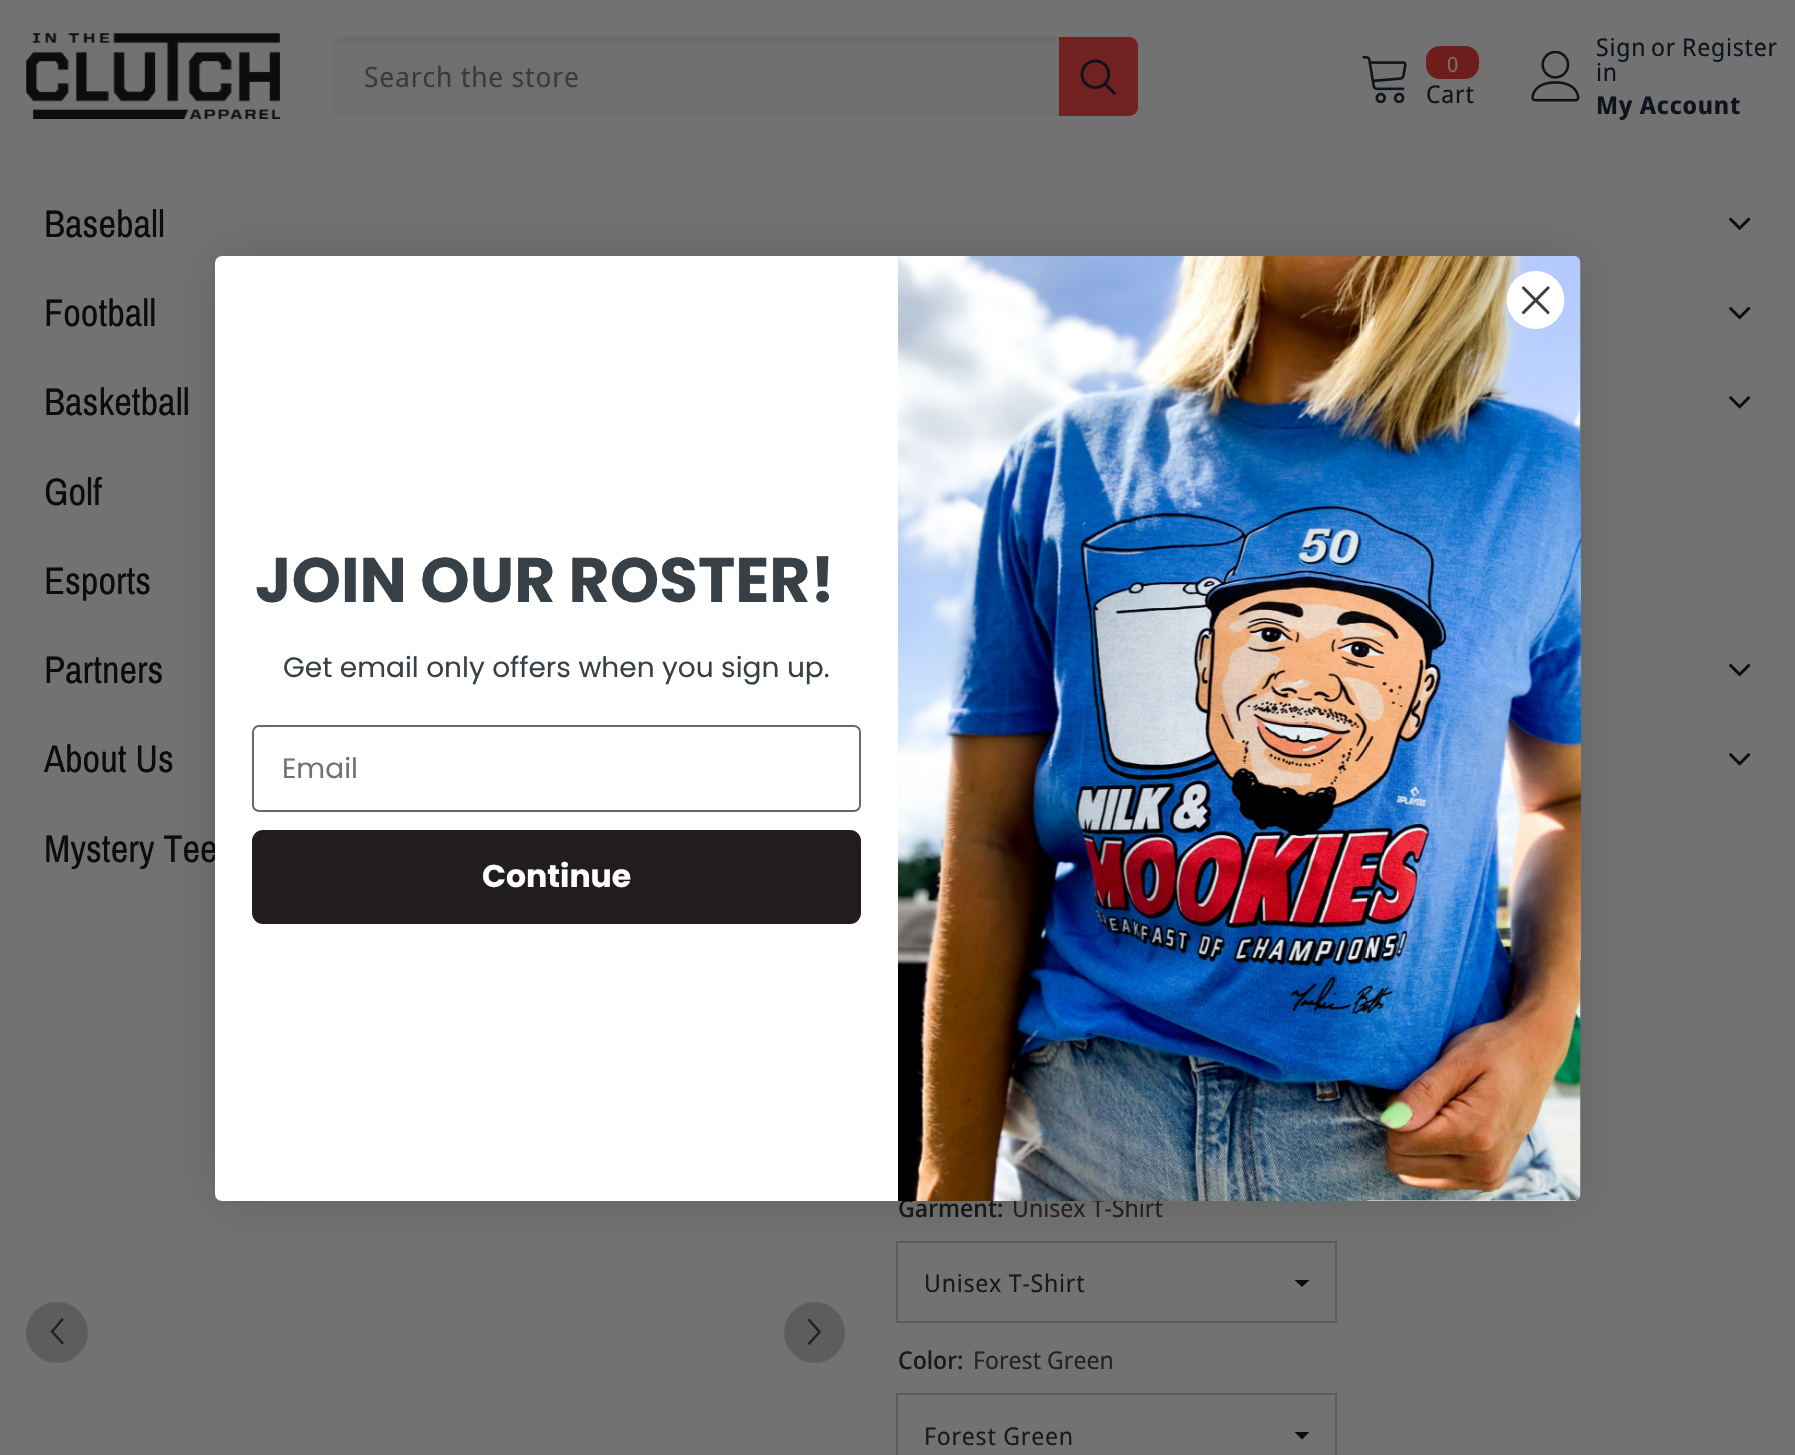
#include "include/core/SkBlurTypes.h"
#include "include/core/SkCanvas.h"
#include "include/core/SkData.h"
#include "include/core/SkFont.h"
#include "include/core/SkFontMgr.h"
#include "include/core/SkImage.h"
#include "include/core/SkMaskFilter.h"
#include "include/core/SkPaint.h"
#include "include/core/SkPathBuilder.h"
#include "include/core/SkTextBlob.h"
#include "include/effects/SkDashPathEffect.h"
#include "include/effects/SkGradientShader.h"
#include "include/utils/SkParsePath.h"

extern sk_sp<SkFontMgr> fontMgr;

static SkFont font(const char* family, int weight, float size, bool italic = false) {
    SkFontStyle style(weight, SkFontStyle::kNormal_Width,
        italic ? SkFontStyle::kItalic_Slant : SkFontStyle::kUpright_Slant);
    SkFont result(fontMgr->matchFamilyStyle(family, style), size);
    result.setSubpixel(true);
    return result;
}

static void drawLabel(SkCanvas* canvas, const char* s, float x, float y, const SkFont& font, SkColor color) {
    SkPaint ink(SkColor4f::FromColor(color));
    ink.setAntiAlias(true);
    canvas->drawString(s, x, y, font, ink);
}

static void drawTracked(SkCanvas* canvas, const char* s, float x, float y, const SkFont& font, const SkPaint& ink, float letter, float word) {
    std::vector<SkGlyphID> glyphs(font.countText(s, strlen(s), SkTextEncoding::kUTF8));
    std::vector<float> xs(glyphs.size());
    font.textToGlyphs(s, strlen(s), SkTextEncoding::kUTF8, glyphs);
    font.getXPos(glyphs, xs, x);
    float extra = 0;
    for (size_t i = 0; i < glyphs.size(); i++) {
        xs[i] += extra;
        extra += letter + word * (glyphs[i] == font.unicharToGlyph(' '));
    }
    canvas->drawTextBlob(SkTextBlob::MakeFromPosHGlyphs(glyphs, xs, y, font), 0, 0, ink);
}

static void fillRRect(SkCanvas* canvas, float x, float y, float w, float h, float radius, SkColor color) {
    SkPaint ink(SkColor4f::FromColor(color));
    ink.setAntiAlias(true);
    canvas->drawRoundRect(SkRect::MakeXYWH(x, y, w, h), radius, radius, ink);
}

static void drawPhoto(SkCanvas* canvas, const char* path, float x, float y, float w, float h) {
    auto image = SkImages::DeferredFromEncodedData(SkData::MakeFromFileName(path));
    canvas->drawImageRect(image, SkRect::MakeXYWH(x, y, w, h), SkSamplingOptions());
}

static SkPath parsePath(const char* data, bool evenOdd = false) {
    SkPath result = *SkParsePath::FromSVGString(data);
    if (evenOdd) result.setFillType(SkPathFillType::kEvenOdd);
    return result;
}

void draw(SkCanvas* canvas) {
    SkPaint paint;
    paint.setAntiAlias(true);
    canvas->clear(0xFF727272);
    drawPhoto(canvas, "assets/img1.png", 26, 33, 254, 86);
    {
        const SkColor colors[] = {0xFF696A6B, 0xFF6F6F70, 0xFF6F6F70};
        const float stops[] = {0, 0.1f, 1};
        const SkPoint ends[] = {{735, 37}, {735, 116}};
        paint.setShader(SkGradientShader::MakeLinear(ends, colors, stops, 3, SkTileMode::kClamp));
        paint.setAlpha(255);
    }
    canvas->drawRoundRect(SkRect::MakeXYWH(333, 37, 805, 79), 9, 9, paint);
    SkFont font1 = font("Noto Sans Display", 400, 28);
    paint.setShader(nullptr);
    paint.setColor(0xFF3B3B3B);
    drawTracked(canvas, "Search the store", 364, 87, font1, paint, 0.8f, 0);
    paint.setColor(0xFF722121);
    canvas->drawPath(parsePath("M1059 37H1129C1134 37 1138 41 1138 46V107C1138 112 1134 116 1129 116H1059Z"), paint);
    drawPhoto(canvas, "assets/img2.png", 1080, 59, 36, 36);
    drawPhoto(canvas, "assets/img3.png", 1362, 56, 45, 47);
    fillRRect(canvas, 1426, 46, 53, 33, 14, 0xFF6E1D1A);
    SkFont font2 = font("Noto Sans Display", 400, 21);
    drawLabel(canvas, "0", 1447, 72, font2, 0xFF727272);
    SkFont font3 = font("Noto Sans Display", 400, 24.5f);
    paint.setColor(0xFF0E141E);
    drawTracked(canvas, "Cart", 1426, 103, font3, paint, 0.75f, 0);
    drawPhoto(canvas, "assets/img4.png", 1531, 51, 49, 51);
    drawTracked(canvas, "Sign", 1596, 56, font3, paint, 0.75f, 0);
    drawTracked(canvas, "in", 1596, 81, font3, paint, 0.75f, 0);
    drawTracked(canvas, "or", 1651, 56, font3, paint, 0.75f, 0);
    drawTracked(canvas, "Register", 1682, 56, font3, paint, 0.75f, 0);
    SkFont font4 = font("Noto Sans Display", 700, 24.5f);
    drawTracked(canvas, "My Account", 1596, 114, font4, paint, 0.75f, 0);
    SkFont font5 = font("Archivo Narrow", 400, 38.5f);
    drawLabel(canvas, "Baseball", 44, 237, font5, 0xFF0C0C0C);
    drawPhoto(canvas, "assets/img5.png", 1729, 217, 22, 13);
    drawLabel(canvas, "Football", 44, 326, font5, 0xFF0C0C0C);
    drawPhoto(canvas, "assets/img6.png", 1729, 306, 22, 14);
    drawLabel(canvas, "Basketball", 44, 415, font5, 0xFF0C0C0C);
    drawPhoto(canvas, "assets/img7.png", 1729, 396, 22, 13);
    drawLabel(canvas, "Golf", 44, 505, font5, 0xFF0C0C0C);
    drawLabel(canvas, "Esports", 44, 594, font5, 0xFF0C0C0C);
    drawLabel(canvas, "Partners", 44, 683, font5, 0xFF0C0C0C);
    drawPhoto(canvas, "assets/img6.png", 1729, 663, 22, 14);
    drawLabel(canvas, "About Us", 44, 772, font5, 0xFF0C0C0C);
    drawPhoto(canvas, "assets/img7.png", 1729, 753, 22, 13);
    drawLabel(canvas, "Mystery Tee", 44, 862, font5, 0xFF0C0C0C);
    paint.setColor(0xFF5D5D5D);
    canvas->drawRoundRect(SkRect::MakeXYWH(27, 1303, 60, 59), 29.5f, 29.5f, paint);
    paint.setStroke(true);
    paint.setStrokeWidth(2);
    paint.setColor(0xFF5E5E5E);
    canvas->drawRoundRect(SkRect::MakeXYWH(27, 1303, 60, 59), 29.5f, 29.5f, paint);
    paint.setStroke(false);
    paint.setColor(0xFF202020);
    canvas->drawPath(parsePath("M62 1344.5L64 1343L53.5 1331.5L64 1319.5L62 1318L50.5 1331.5L51 1332Z"), paint);
    paint.setColor(0xFF5D5D5D);
    canvas->drawCircle(814.5f, 1332.5f, 29.5f, paint);
    paint.setStroke(true);
    paint.setColor(0xFF5E5E5E);
    canvas->drawCircle(814.5f, 1332.5f, 29.5f, paint);
    paint.setStroke(false);
    paint.setColor(0xFF202020);
    canvas->drawPath(parsePath("M809.5 1318.5L807.5 1320L818 1332L807.5 1343.5L809.5 1345L821 1332L820.5 1331Z"), paint);
    SkFont font6 = font("Noto Sans Display", 500, 24.5f);
    drawLabel(canvas, "Garment:", 898, 1217, font6, 0xFF1A1A1A);
    drawLabel(canvas, "Unisex T-Shirt", 1012, 1217, font3, 0xFF242424);
    paint.setStroke(true);
    paint.setColor(0xFF5C5C5C);
    canvas->drawRect(SkRect::MakeXYWH(897, 1242, 439, 80), paint);
    paint.setStroke(false);
    paint.setColor(0xFF0C0C0C);
    canvas->drawPath(parsePath("M1294.5 1280L1302 1287L1309.5 1280Z"), paint);
    paint.setColor(0xFF1A1A1A);
    drawTracked(canvas, "Unisex T-Shirt", 924, 1292, font3, paint, 0.75f, 0);
    drawLabel(canvas, "Color:", 898, 1369, font6, 0xFF1A1A1A);
    drawLabel(canvas, "Forest Green", 973, 1369, font3, 0xFF242424);
    paint.setStroke(true);
    paint.setColor(0xFF5C5C5C);
    canvas->drawRect(SkRect::MakeXYWH(897, 1394, 439, 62), paint);
    paint.setStroke(false);
    paint.setColor(0xFF0C0C0C);
    canvas->drawPath(parsePath("M1294.5 1432L1302 1439.5L1309.5 1432Z"), paint);
    paint.setColor(0xFF1A1A1A);
    drawTracked(canvas, "Forest Green", 924, 1445, font3, paint, 0.75f, 0);
    paint.setColor(0x26000000);
    paint.setMaskFilter(SkMaskFilter::MakeBlur(kNormal_SkBlurStyle, 26));
    canvas->drawRoundRect(SkRect::MakeXYWH(215, 256, 1365, 945), 7, 7, paint);
    paint.setMaskFilter(nullptr);
    fillRRect(canvas, 215, 256, 1365, 945, 7, 0xFFFFFFFF);
    drawPhoto(canvas, "assets/img8.png", 898, 256, 683, 945);
    paint.setColor(0xFFFFFFFF);
    canvas->drawCircle(1535.5f, 300, 29, paint);
    paint.setStroke(true);
    paint.setStrokeWidth(3.1f);
    paint.setStrokeCap(SkPaint::kRound_Cap);
    paint.setStrokeJoin(SkPaint::kRound_Join);
    paint.setColor(0xFF373F47);
    canvas->drawPath(parsePath("M1523.5 288L1548 312.5M1523.5 312.5L1548 288Z"), paint);
    SkFont font7 = font("Poppins", 700, 63);
    drawLabel(canvas, "JOIN OUR ROSTER!", 255, 602, font7, 0xFF373F47);
    SkFont font8 = font("Poppins", 400, 28);
    drawLabel(canvas, "Get email only offers when you sign up.", 283, 677, font8, 0xFF373F47);
    paint.setStrokeWidth(2);
    paint.setStrokeCap(SkPaint::kButt_Cap);
    paint.setStrokeJoin(SkPaint::kMiter_Join);
    paint.setColor(0xFF606A72);
    canvas->drawRoundRect(SkRect::MakeXYWH(253, 726, 607, 85), 6, 6, paint);
    drawLabel(canvas, "Email", 282, 778, font8, 0xFF727272);
    fillRRect(canvas, 252, 830, 609, 94, 11, 0xFF211D1C);
    SkFont font9 = font("Poppins", 700, 31.5f);
    drawLabel(canvas, "Continue", 482, 887, font9, 0xFFFFFFFF);
}
